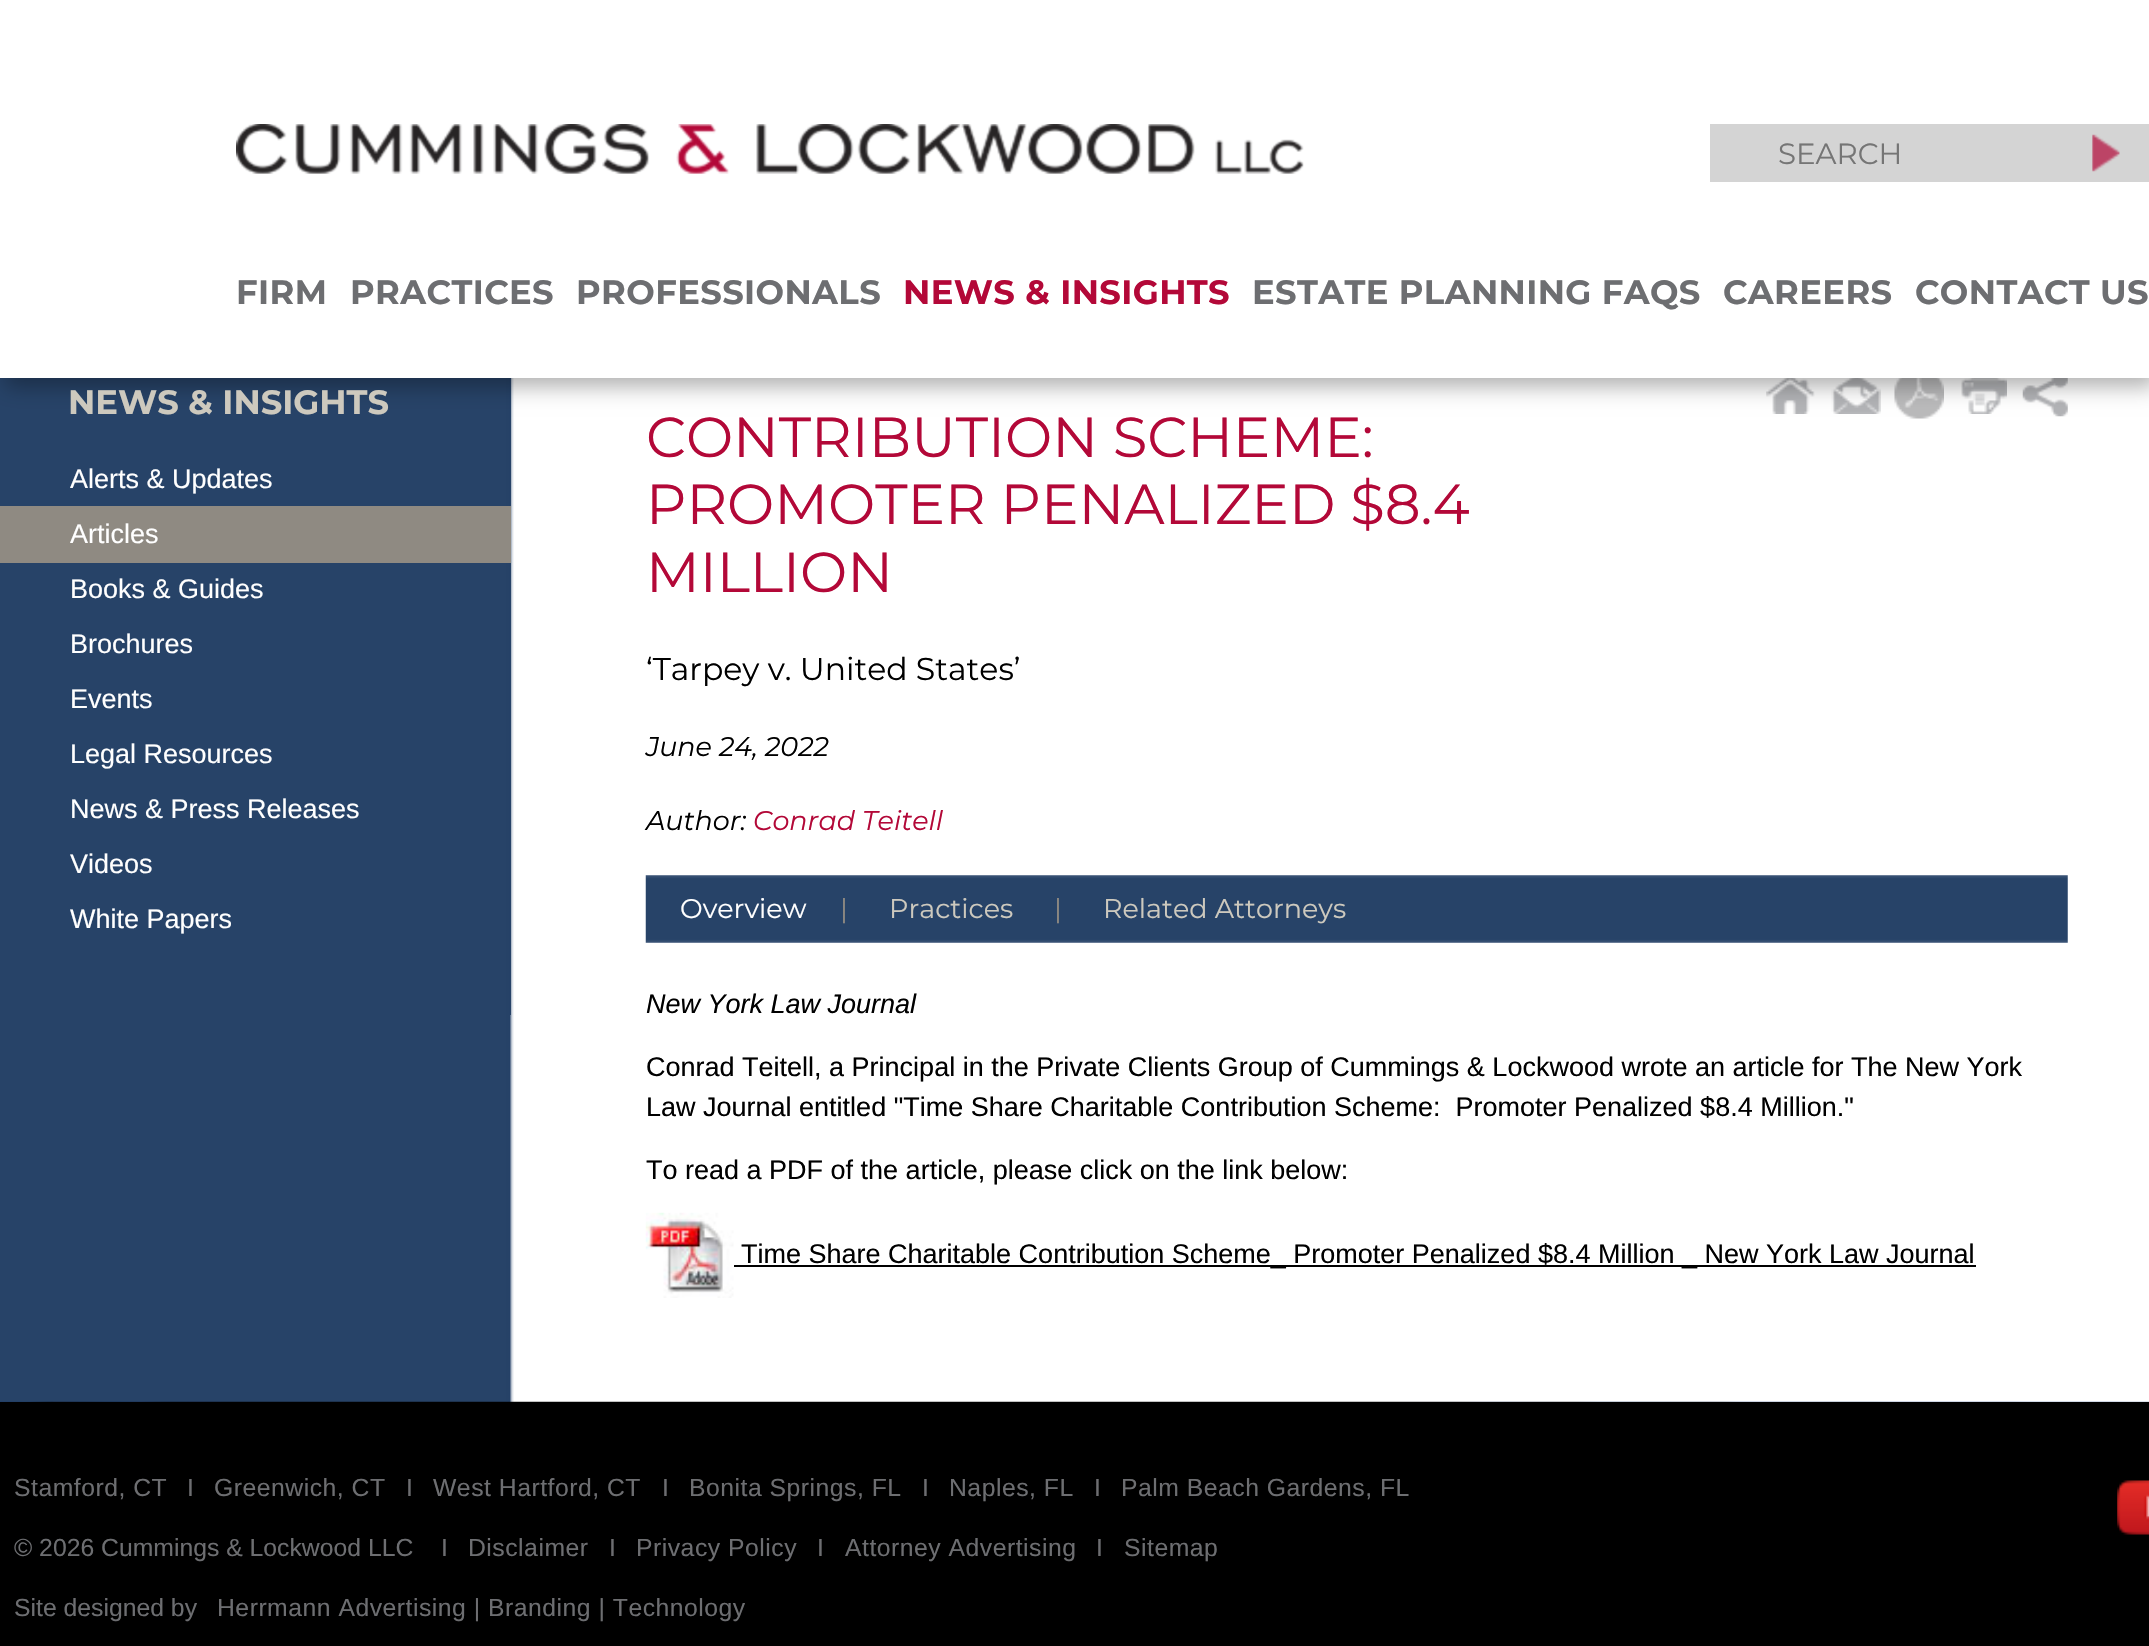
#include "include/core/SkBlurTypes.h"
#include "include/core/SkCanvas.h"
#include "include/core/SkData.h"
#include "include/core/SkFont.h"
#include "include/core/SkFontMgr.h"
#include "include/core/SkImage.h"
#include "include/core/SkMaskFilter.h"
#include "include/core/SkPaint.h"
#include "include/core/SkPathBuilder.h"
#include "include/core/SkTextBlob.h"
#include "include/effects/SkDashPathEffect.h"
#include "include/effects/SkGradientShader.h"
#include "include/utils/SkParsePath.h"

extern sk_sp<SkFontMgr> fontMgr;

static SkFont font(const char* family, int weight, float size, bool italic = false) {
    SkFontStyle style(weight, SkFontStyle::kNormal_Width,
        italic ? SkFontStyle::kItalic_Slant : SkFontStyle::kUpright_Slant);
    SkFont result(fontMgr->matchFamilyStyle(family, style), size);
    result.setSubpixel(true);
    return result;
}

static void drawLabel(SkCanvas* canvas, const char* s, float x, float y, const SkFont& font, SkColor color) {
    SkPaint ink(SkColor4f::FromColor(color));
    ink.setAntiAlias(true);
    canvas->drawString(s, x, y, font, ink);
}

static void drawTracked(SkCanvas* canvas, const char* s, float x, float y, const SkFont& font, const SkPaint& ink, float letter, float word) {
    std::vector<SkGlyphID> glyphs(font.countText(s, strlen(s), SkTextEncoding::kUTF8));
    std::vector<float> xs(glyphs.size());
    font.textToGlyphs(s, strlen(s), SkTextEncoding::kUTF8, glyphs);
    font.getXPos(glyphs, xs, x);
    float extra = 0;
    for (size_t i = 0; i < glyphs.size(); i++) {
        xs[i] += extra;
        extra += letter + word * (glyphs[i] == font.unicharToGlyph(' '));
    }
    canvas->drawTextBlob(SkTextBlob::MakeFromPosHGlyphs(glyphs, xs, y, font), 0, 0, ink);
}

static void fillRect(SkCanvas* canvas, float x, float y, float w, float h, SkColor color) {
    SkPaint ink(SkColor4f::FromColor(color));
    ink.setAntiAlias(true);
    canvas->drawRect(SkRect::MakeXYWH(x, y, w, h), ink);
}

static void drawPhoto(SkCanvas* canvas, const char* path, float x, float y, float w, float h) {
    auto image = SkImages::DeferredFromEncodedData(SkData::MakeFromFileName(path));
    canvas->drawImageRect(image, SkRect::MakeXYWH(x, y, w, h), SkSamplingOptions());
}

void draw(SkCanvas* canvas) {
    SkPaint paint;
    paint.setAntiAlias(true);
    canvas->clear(0xFF000000);
    drawPhoto(canvas, "assets/img3.png", 0, 1401, 2149, 1);
    paint.setColor(0x4D000000);
    paint.setMaskFilter(SkMaskFilter::MakeBlur(kNormal_SkBlurStyle, 10));
    canvas->drawRect(SkRect::MakeXYWH(-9, -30, 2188, 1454), paint);
    paint.setMaskFilter(nullptr);
    drawPhoto(canvas, "assets/img4.png", 0, 378, 2149, 1024);
    fillRect(canvas, 510, 378, 1, 637, 0xFF274368);
    drawPhoto(canvas, "assets/img5.png", 1766, 378, 49, 36);
    drawPhoto(canvas, "assets/img6.png", 1831, 378, 50, 36);
    drawPhoto(canvas, "assets/img7.png", 1894, 378, 50, 41);
    drawPhoto(canvas, "assets/img8.png", 1961, 378, 46, 36);
    drawPhoto(canvas, "assets/img9.png", 2022, 378, 46, 39);
    paint.setMaskFilter(SkMaskFilter::MakeBlur(kNormal_SkBlurStyle, 10));
    canvas->drawRect(SkRect::MakeXYWH(5, 9, 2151, 378), paint);
    paint.setMaskFilter(nullptr);
    fillRect(canvas, 0, 0, 2149, 378, 0xFFFFFFFF);
    drawPhoto(canvas, "assets/img1.png", 236, 124, 1068, 50);
    fillRect(canvas, 1710, 124, 439, 58, 0xFFD4D4D4);
    SkFont font1 = font("Montserrat", 400, 29.25f);
    drawLabel(canvas, "SEARCH", 1778, 164, font1, 0xFF757575);
    drawPhoto(canvas, "assets/img2.png", 2092, 134, 28, 38);
    SkFont font2 = font("Montserrat", 700, 33.75f);
    paint.setColor(0xFF6D6E71);
    drawTracked(canvas, "FIRM", 236, 304, font2, paint, 0.4f, 0);
    drawTracked(canvas, "PRACTICES", 350, 304, font2, paint, 0.4f, 0);
    drawTracked(canvas, "PROFESSIONALS", 576, 304, font2, paint, 0.4f, 0);
    paint.setColor(0xFFB30838);
    drawTracked(canvas, "NEWS & INSIGHTS", 903, 304, font2, paint, 0.4f, 0);
    paint.setColor(0xFF6D6E71);
    drawTracked(canvas, "ESTATE PLANNING FAQS", 1252, 304, font2, paint, 0.4f, 0);
    drawTracked(canvas, "CAREERS", 1723, 304, font2, paint, 0.4f, 0);
    drawTracked(canvas, "CONTACT US", 1915, 304, font2, paint, 0.4f, 0);
    drawLabel(canvas, "NEWS & INSIGHTS", 68, 414, font2, 0xFFCDC9BE);
    SkFont font3 = font("Liberation Sans", 400, 27);
    drawLabel(canvas, "Alerts & Updates", 70, 488, font3, 0xFFFFFFFF);
    fillRect(canvas, 0, 506, 511, 57, 0xFF8F8A82);
    drawLabel(canvas, "Articles", 70, 543, font3, 0xFFFFFFFF);
    drawLabel(canvas, "Books & Guides", 70, 598, font3, 0xFFFFFFFF);
    drawLabel(canvas, "Brochures", 70, 653, font3, 0xFFFFFFFF);
    drawLabel(canvas, "Events", 70, 708, font3, 0xFFFFFFFF);
    drawLabel(canvas, "Legal Resources", 70, 763, font3, 0xFFFFFFFF);
    drawLabel(canvas, "News & Press Releases", 70, 818, font3, 0xFFFFFFFF);
    drawLabel(canvas, "Videos", 70, 873, font3, 0xFFFFFFFF);
    drawLabel(canvas, "White Papers", 70, 928, font3, 0xFFFFFFFF);
    SkFont font4 = font("Montserrat", 400, 56.25f);
    drawLabel(canvas, "CONTRIBUTION SCHEME:", 646, 457, font4, 0xFFB30838);
    drawLabel(canvas, "PROMOTER PENALIZED $8.4", 646, 524, font4, 0xFFB30838);
    drawLabel(canvas, "MILLION", 646, 592, font4, 0xFFB30838);
    SkFont font5 = font("Montserrat", 400, 31.5f);
    drawLabel(canvas, "‘Tarpey v. United States’", 646, 680, font5, 0xFF000000);
    SkFont font6 = font("Montserrat", 100, 27, true);
    drawLabel(canvas, "June 24, 2022", 646, 756, font6, 0xFF000000);
    drawLabel(canvas, "Author:", 646, 830, font6, 0xFF000000);
    drawLabel(canvas, "Conrad Teitell", 753, 830, font6, 0xFFB30838);
    drawPhoto(canvas, "assets/img10.png", 645, 875, 1423, 68);
    SkFont font7 = font("Montserrat", 400, 27);
    drawLabel(canvas, "Overview", 680, 918, font7, 0xFFFFFFFF);
    drawLabel(canvas, "|", 840, 918, font7, 0xFF8F8A82);
    drawLabel(canvas, "Practices", 889, 918, font7, 0xFFCDC9BE);
    drawLabel(canvas, "|", 1054, 918, font7, 0xFF8F8A82);
    drawLabel(canvas, "Related Attorneys", 1103, 918, font7, 0xFFCDC9BE);
    SkFont font8 = font("Liberation Sans", 400, 27, true);
    drawLabel(canvas, "New York Law Journal", 646, 1013, font8, 0xFF000000);
    drawLabel(canvas, "Conrad Teitell, a Principal in the Private Clients Group of Cummings & Lockwood wrote an article for The New York", 646, 1076, font3, 0xFF000000);
    drawLabel(canvas, "Law Journal entitled \"Time Share Charitable Contribution Scheme:  Promoter Penalized $8.4 Million.\"", 646, 1116, font3, 0xFF000000);
    drawLabel(canvas, "To read a PDF of the article, please click on the link below:", 646, 1179, font3, 0xFF000000);
    drawPhoto(canvas, "assets/img11.png", 645, 1212, 89, 86);
    fillRect(canvas, 734, 1265, 1242, 2, 0xFF000000);
    drawLabel(canvas, "Time Share Charitable Contribution Scheme_ Promoter Penalized $8.4 Million _ New York Law Journal", 741, 1263, font3, 0xFF000000);
    SkFont font9 = font("Liberation Sans", 400, 24.75f);
    drawTracked(canvas, "Stamford, CT", 14, 1496, font9, paint, 0.5f, 0);
    drawLabel(canvas, "I", 187, 1496, font9, 0xFF6D6E71);
    drawTracked(canvas, "Greenwich, CT", 214, 1496, font9, paint, 0.5f, 0);
    drawLabel(canvas, "I", 406, 1496, font9, 0xFF6D6E71);
    drawTracked(canvas, "West Hartford, CT", 433, 1496, font9, paint, 0.5f, 0);
    drawLabel(canvas, "I", 662, 1496, font9, 0xFF6D6E71);
    drawTracked(canvas, "Bonita Springs, FL", 689, 1496, font9, paint, 0.5f, 0);
    drawLabel(canvas, "I", 922, 1496, font9, 0xFF6D6E71);
    drawTracked(canvas, "Naples, FL", 949, 1496, font9, paint, 0.5f, 0);
    drawLabel(canvas, "I", 1094, 1496, font9, 0xFF6D6E71);
    drawTracked(canvas, "Palm Beach Gardens, FL", 1121, 1496, font9, paint, 0.5f, 0);
    drawLabel(canvas, "© 2026 Cummings & Lockwood LLC", 14, 1556, font9, 0xFF6D6E71);
    drawLabel(canvas, "I", 441, 1556, font9, 0xFF6D6E71);
    drawTracked(canvas, "Disclaimer", 468, 1556, font9, paint, 0.5f, 0);
    drawLabel(canvas, "I", 609, 1556, font9, 0xFF6D6E71);
    drawTracked(canvas, "Privacy Policy", 636, 1556, font9, paint, 0.5f, 0);
    drawLabel(canvas, "I", 817, 1556, font9, 0xFF6D6E71);
    drawTracked(canvas, "Attorney Advertising", 845, 1556, font9, paint, 0.5f, 0);
    drawLabel(canvas, "I", 1096, 1556, font9, 0xFF6D6E71);
    drawTracked(canvas, "Sitemap", 1124, 1556, font9, paint, 0.5f, 0);
    drawLabel(canvas, "Site designed by", 14, 1616, font9, 0xFF6D6E71);
    drawTracked(canvas, "Herrmann Advertising | Branding | Technology", 217, 1616, font9, paint, 0.5f, 0);
    drawPhoto(canvas, "assets/img12.png", 2117, 1480, 32, 55);
}
